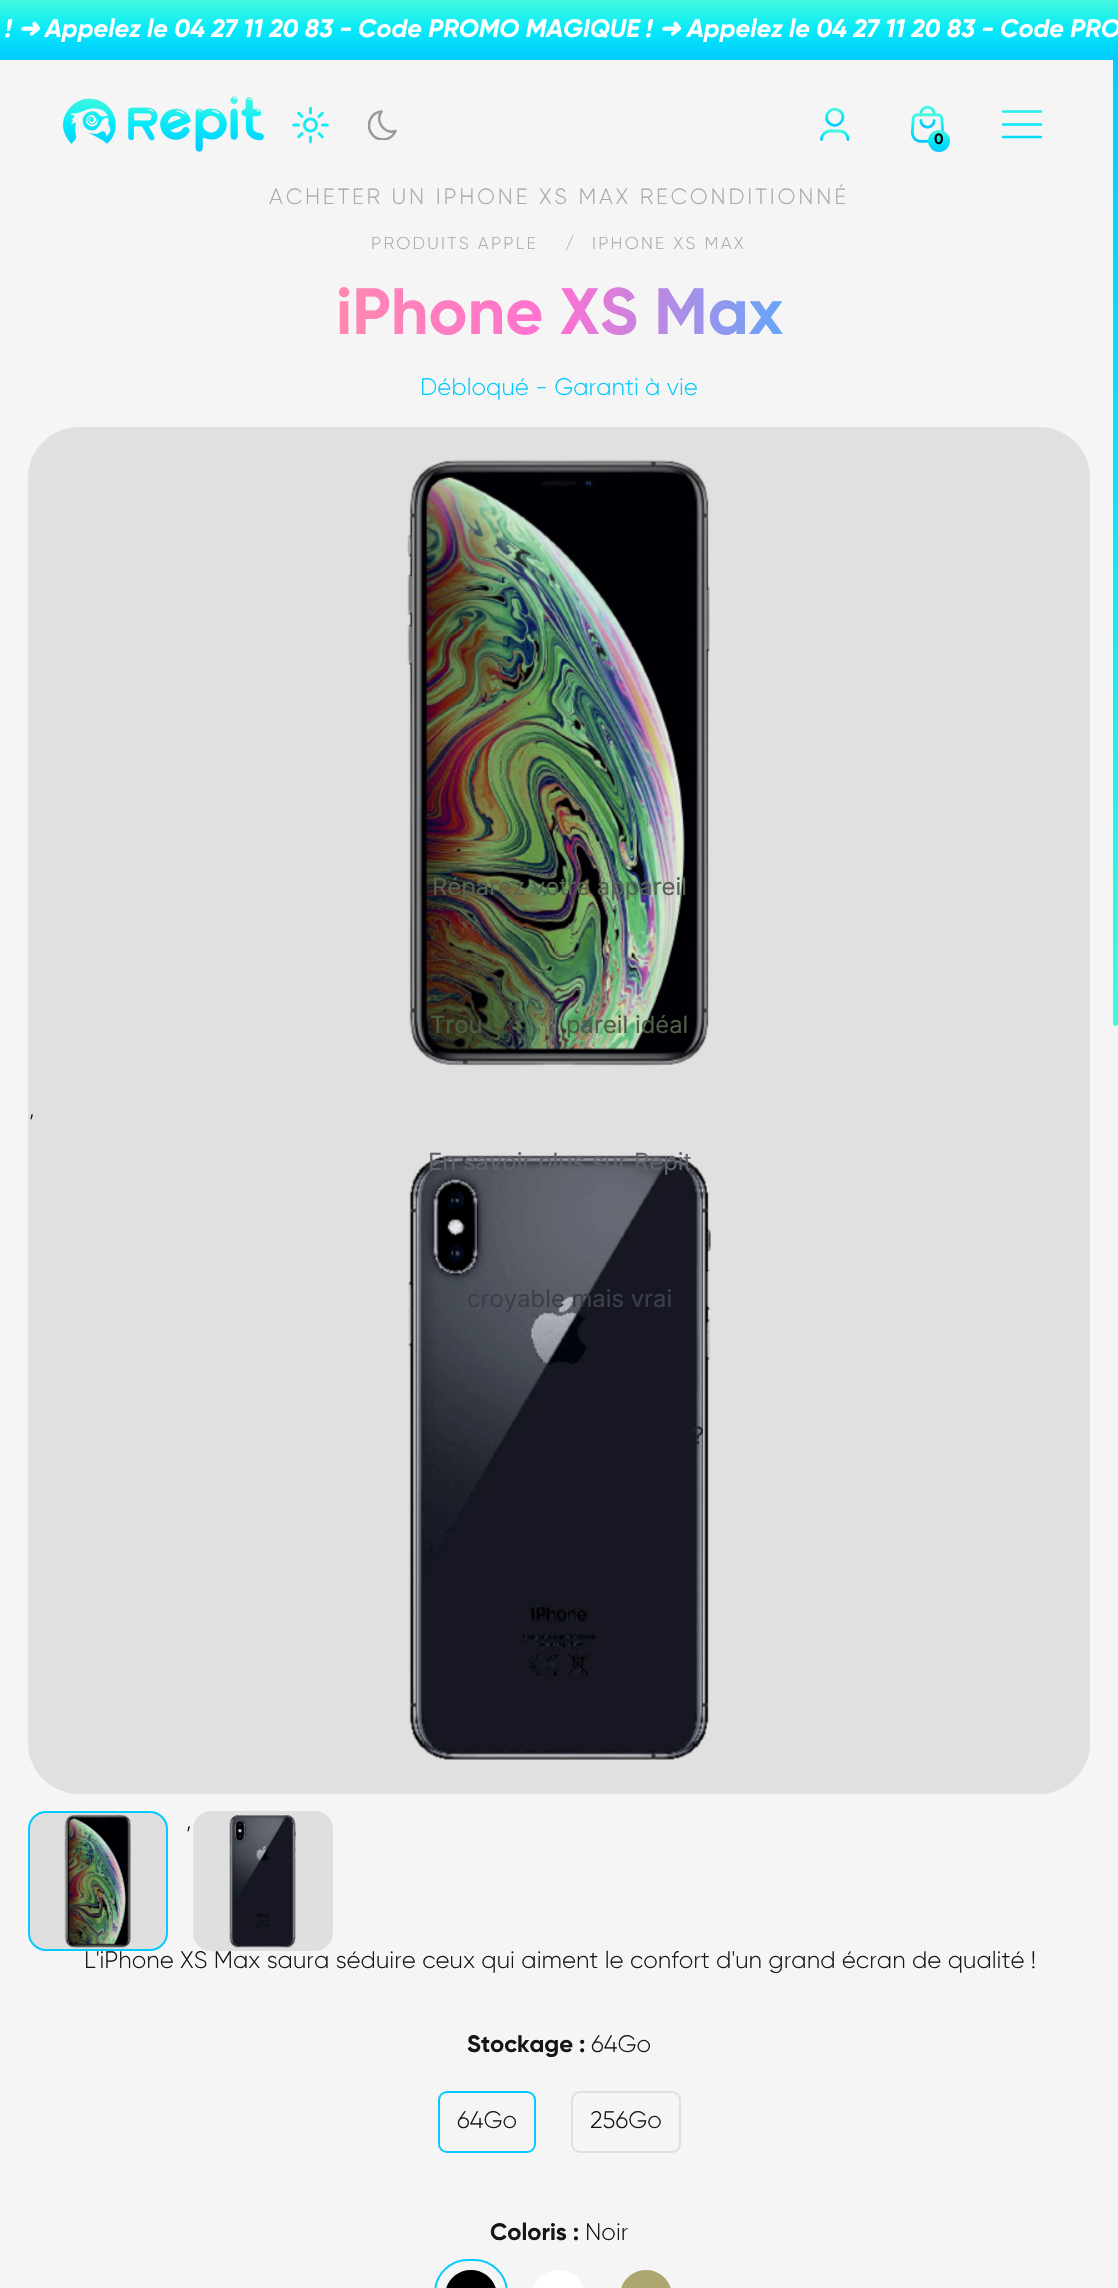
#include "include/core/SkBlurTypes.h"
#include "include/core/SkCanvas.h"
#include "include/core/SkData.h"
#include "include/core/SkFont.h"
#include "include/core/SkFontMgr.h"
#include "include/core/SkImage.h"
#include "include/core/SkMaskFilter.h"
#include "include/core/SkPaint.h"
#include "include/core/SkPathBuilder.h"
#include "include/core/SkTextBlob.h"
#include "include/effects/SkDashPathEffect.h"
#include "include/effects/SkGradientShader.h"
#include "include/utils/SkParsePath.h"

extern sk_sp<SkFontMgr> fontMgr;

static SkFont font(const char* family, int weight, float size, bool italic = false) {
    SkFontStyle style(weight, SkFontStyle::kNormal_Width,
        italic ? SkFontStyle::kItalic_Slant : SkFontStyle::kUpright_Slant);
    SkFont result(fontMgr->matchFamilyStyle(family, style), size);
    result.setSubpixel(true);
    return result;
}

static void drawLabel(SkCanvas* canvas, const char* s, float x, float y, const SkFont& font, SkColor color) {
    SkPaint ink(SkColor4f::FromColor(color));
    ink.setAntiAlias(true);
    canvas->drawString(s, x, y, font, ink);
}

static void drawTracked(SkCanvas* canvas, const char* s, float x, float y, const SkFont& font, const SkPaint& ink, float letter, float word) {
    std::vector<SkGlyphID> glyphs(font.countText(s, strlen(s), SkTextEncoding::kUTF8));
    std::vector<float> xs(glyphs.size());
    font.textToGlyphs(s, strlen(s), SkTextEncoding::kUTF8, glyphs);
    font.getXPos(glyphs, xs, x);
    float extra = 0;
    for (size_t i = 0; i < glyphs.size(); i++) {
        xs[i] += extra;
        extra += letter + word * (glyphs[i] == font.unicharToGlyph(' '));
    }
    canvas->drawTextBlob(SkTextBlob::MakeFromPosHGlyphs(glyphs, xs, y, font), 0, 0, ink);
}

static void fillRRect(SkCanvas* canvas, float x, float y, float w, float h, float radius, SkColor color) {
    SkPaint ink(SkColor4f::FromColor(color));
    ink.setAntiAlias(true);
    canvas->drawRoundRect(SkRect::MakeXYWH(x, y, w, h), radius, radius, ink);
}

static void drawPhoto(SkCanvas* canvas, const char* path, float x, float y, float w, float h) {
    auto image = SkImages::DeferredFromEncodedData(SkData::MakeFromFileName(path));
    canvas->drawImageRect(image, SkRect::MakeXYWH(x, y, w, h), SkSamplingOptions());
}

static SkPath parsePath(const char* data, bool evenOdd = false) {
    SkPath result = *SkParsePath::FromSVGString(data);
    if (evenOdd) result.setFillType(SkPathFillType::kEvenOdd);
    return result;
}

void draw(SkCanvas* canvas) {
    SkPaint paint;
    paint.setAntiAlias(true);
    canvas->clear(0xFFF5F5F5);
    {
        const SkColor colors[] = {0xFF44F8DE, 0xFF06E9F9, 0xFF03CAFF};
        const float stops[] = {0, 0.5f, 1};
        const SkPoint ends[] = {{1116, 1026}, {1116, 0}};
        paint.setShader(SkGradientShader::MakeLinear(ends, colors, stops, 3, SkTileMode::kClamp));
        paint.setAlpha(255);
    }
    canvas->drawRoundRect(SkRect::MakeXYWH(1113, 0, 5, 1026), 2.5f, 2.5f, paint);
    {
        const SkColor colors[] = {0xFF44F8DE, 0xFF06E9F9, 0xFF03CAFF};
        const float stops[] = {0, 0.5f, 1};
        const SkPoint ends[] = {{559, 0}, {559, 60}};
        paint.setShader(SkGradientShader::MakeLinear(ends, colors, stops, 3, SkTileMode::kClamp));
        paint.setAlpha(255);
    }
    canvas->drawRect(SkRect::MakeXYWH(0, 0, 1118, 60), paint);
    SkFont font1 = font("Gilroy", 700, 25.25f, true);
    drawLabel(canvas, "!", 5, 37, font1, 0xFFFFFFFF);
    SkFont font2 = font("DejaVu Sans", 700, 25.25f, true);
    drawLabel(canvas, "➜", 18, 37, font2, 0xFFFFFFFF);
    drawLabel(canvas, "Appelez le 04 27 11 20 83 -", 45, 37, font1, 0xFFFFFFFF);
    drawLabel(canvas, "Code PROMO MAGIQUE !", 358, 37, font1, 0xFFFFFFFF);
    drawLabel(canvas, "➜", 659, 37, font2, 0xFFFFFFFF);
    drawLabel(canvas, "Appelez le 04 27 11 20 83 -", 687, 37, font1, 0xFFFFFFFF);
    drawLabel(canvas, "Code PRO", 1000, 37, font1, 0xFFFFFFFF);
    drawPhoto(canvas, "assets/img1.png", 63, 96, 201, 56);
    drawPhoto(canvas, "assets/img2.png", 292, 107, 37, 37);
    canvas->save();
    canvas->clipRect(SkRect::MakeXYWH(368, 110, 29, 30));
    paint.setStroke(true);
    paint.setStrokeWidth(2.6f);
    paint.setStrokeCap(SkPaint::kRound_Cap);
    paint.setStrokeJoin(SkPaint::kRound_Join);
    paint.setShader(nullptr);
    paint.setColor(0xFF999999);
    canvas->drawPath(parsePath("M395.5 131C393.5 136 388.5 139.5 383 139.5C375 139.5 369 133 369 125.5C369 118 374.5 112 381.5 111.5C374.5 121.5 384.5 134.5 395.5 131Z"), paint);
    canvas->restore();
    paint.setStrokeWidth(2.8f);
    {
        const SkColor colors[] = {0xFF44F8DE, 0xFF06E9F9, 0xFF03CAFF};
        const float stops[] = {0, 0.5f, 1};
        const SkPoint ends[] = {{827, 109}, {827, 125}};
        paint.setShader(SkGradientShader::MakeLinear(ends, colors, stops, 3, SkTileMode::kClamp));
        paint.setAlpha(255);
    }
    canvas->drawPath(parsePath("M840.5 111.5C848 119 836.5 130.5 829 123C821.5 115.5 833 104 840.5 111.5"), paint);
    {
        const SkColor colors[] = {0xFF44F8DE, 0xFF06E9F9, 0xFF03CAFF};
        const float stops[] = {0, 0.5f, 1};
        const SkPoint ends[] = {{821, 131}, {821, 139}};
        paint.setShader(SkGradientShader::MakeLinear(ends, colors, stops, 3, SkTileMode::kClamp));
        paint.setAlpha(255);
    }
    canvas->drawPath(parsePath("M821.5 139.5C821.5 135 825.5 131 830 131H839.5C844.5 131 848 135 848 139.5"), paint);
    drawPhoto(canvas, "assets/img3.png", 910, 105, 35, 38);
    paint.setStroke(false);
    {
        const SkColor colors[] = {0xFF44F8DE, 0xFF06E9F9, 0xFF03CAFF};
        const float stops[] = {0, 0.5f, 1};
        const SkPoint ends[] = {{939, 130}, {939, 152}};
        paint.setShader(SkGradientShader::MakeLinear(ends, colors, stops, 3, SkTileMode::kClamp));
        paint.setAlpha(255);
    }
    canvas->drawCircle(939, 141, 11, paint);
    SkFont font3 = font("Gilroy", 700, 15);
    drawLabel(canvas, "0", 934, 144, font3, 0xFF000000);
    paint.setStroke(true);
    paint.setStrokeWidth(2.4f);
    {
        const SkColor colors[] = {0xFF44F8DE, 0xFF06E9F9, 0xFF03CAFF};
        const float stops[] = {0, 0.5f, 1};
        const SkPoint ends[] = {{943, 101}, {943, 140}};
        paint.setShader(SkGradientShader::MakeLinear(ends, colors, stops, 3, SkTileMode::kClamp));
        paint.setAlpha(255);
    }
    canvas->drawPath(parsePath("M1003 111.5H1041"), paint);
    paint.setShader(nullptr);
    paint.setColor(0xFF06E9F9);
    canvas->drawPath(parsePath("M1003 124.5H1041"), paint);
    {
        const SkColor colors[] = {0xFF44F8DE, 0xFF06E9F9, 0xFF03CAFF};
        const float stops[] = {0, 0.5f, 1};
        const SkPoint ends[] = {{943, 108}, {943, 148}};
        paint.setShader(SkGradientShader::MakeLinear(ends, colors, stops, 3, SkTileMode::kClamp));
        paint.setAlpha(255);
    }
    canvas->drawPath(parsePath("M1003 137H1041"), paint);
    SkFont font4 = font("Gilroy", 300, 22);
    paint.setStroke(false);
    paint.setShader(nullptr);
    paint.setColor(0xFFAAAAAA);
    drawTracked(canvas, "ACHETER UN IPHONE XS MAX RECONDITIONNÉ", 269, 204, font4, paint, 2.8f, 0);
    SkFont font5 = font("Gilroy", 300, 17.25f);
    drawTracked(canvas, "PRODUITS APPLE ", 371, 249, font5, paint, 2.25f, 0);
    drawTracked(canvas, "/", 565, 249, font5, paint, 2.25f, 0);
    drawTracked(canvas, "IPHONE XS MAX", 592, 249, font5, paint, 2.25f, 0);
    SkFont font6 = font("Gilroy", 700, 65.5f);
    {
        const SkColor colors[] = {0xFF54FFD4, 0xFF49B0FF, 0xFFFF71D2, 0xFFFF8CA9, 0xFFFFD474};
        const float stops[] = {0, 0.25f, 0.5f, 0.75f, 1};
        const SkPoint ends[] = {{1089, 316}, {29, 316}};
        paint.setShader(SkGradientShader::MakeLinear(ends, colors, stops, 5, SkTileMode::kClamp));
        paint.setAlpha(255);
    }
    canvas->drawString("iPhone XS Max", 336, 334, font6, paint);
    SkFont font7 = font("Gilroy", 300, 23.8f);
    drawLabel(canvas, "Débloqué - Garanti à vie", 420, 395, font7, 0xFF03CAFF);
    fillRRect(canvas, 28, 427, 1062, 1367, 51, 0xFFE0E0E0);
    drawPhoto(canvas, "assets/img4.png", 407, 459, 303, 607);
    drawLabel(canvas, ",", 29, 1116, font7, 0xFF161616);
    drawPhoto(canvas, "assets/img5.png", 407, 1155, 304, 605);
    paint.setShader(nullptr);
    paint.setColor(0xFFDFDFDF);
    canvas->drawRoundRect(SkRect::MakeXYWH(29, 1812, 138, 138), 17, 17, paint);
    paint.setStroke(true);
    paint.setStrokeWidth(2);
    paint.setStrokeCap(SkPaint::kButt_Cap);
    paint.setStrokeJoin(SkPaint::kMiter_Join);
    paint.setColor(0xFF03CAFF);
    canvas->drawRoundRect(SkRect::MakeXYWH(29, 1812, 138, 138), 17, 17, paint);
    drawPhoto(canvas, "assets/img6.png", 64, 1814, 67, 134);
    drawLabel(canvas, ",", 186, 1828, font7, 0xFF161616);
    fillRRect(canvas, 193, 1811, 140, 140, 18, 0xFFDFDFDF);
    drawPhoto(canvas, "assets/img7.png", 229, 1815, 67, 133);
    drawLabel(canvas, "L'iPhone XS Max saura séduire ceux qui aiment le confort d'un grand écran de qualité !", 84, 1968, font7, 0xFF161616);
    SkFont font8 = font("Gilroy", 700, 23.8f);
    drawLabel(canvas, "Stockage :", 467, 2052, font8, 0xFF161616);
    drawLabel(canvas, "64Go", 591, 2052, font7, 0xFF161616);
    canvas->drawRoundRect(SkRect::MakeXYWH(439, 2092, 96, 60), 8, 8, paint);
    drawLabel(canvas, "64Go", 457, 2128, font7, 0xFF161616);
    paint.setColor(0xFFDFDFDF);
    canvas->drawRoundRect(SkRect::MakeXYWH(572, 2092, 108, 60), 8, 8, paint);
    drawLabel(canvas, "256Go", 590, 2128, font7, 0xFF161616);
    drawLabel(canvas, "Coloris :", 490, 2240, font8, 0xFF161616);
    drawLabel(canvas, "Noir", 585, 2240, font7, 0xFF161616);
    paint.setColor(0xFF03CAFF);
    canvas->drawRoundRect(SkRect::MakeXYWH(435, 2260, 72, 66), 36, 36, paint);
    paint.setStroke(false);
    paint.setColor(0xFF000000);
    canvas->drawPath(parsePath("M471 2270C485.5 2270 497 2281.5 497 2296V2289H445V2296C445 2281.5 456.5 2270 471 2270Z"), paint);
    paint.setColor(0xFFFFFFFF);
    canvas->drawPath(parsePath("M558 2270H559C573.5 2270 585 2281.5 585 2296V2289H532V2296C532 2281.5 543.5 2270 558 2270Z"), paint);
    paint.setColor(0xFFADA66E);
    canvas->drawPath(parsePath("M646 2270C660.5 2270 672 2281.5 672 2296V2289H620V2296C620 2281.5 631.5 2270 646 2270Z"), paint);
    SkFont font9 = font("Inter", 400, 23.8f);
    drawLabel(canvas, "Réparez votre appareil", 432, 895, font9, 0xFF566250);
    drawLabel(canvas, "Trou", 430, 1033, font9, 0xFF4D5D46);
    drawLabel(canvas, "pareil idéal", 566, 1033, font9, 0xFF4D5D46);
    drawLabel(canvas, "En savoir plus sur Repit", 428, 1170, font9, 0xFF5F6269);
    drawLabel(canvas, "croyable mais vrai", 467, 1307, font9, 0xFF3C3F49);
    drawLabel(canvas, "?", 692, 1444, font9, 0xFF21232E);
}
